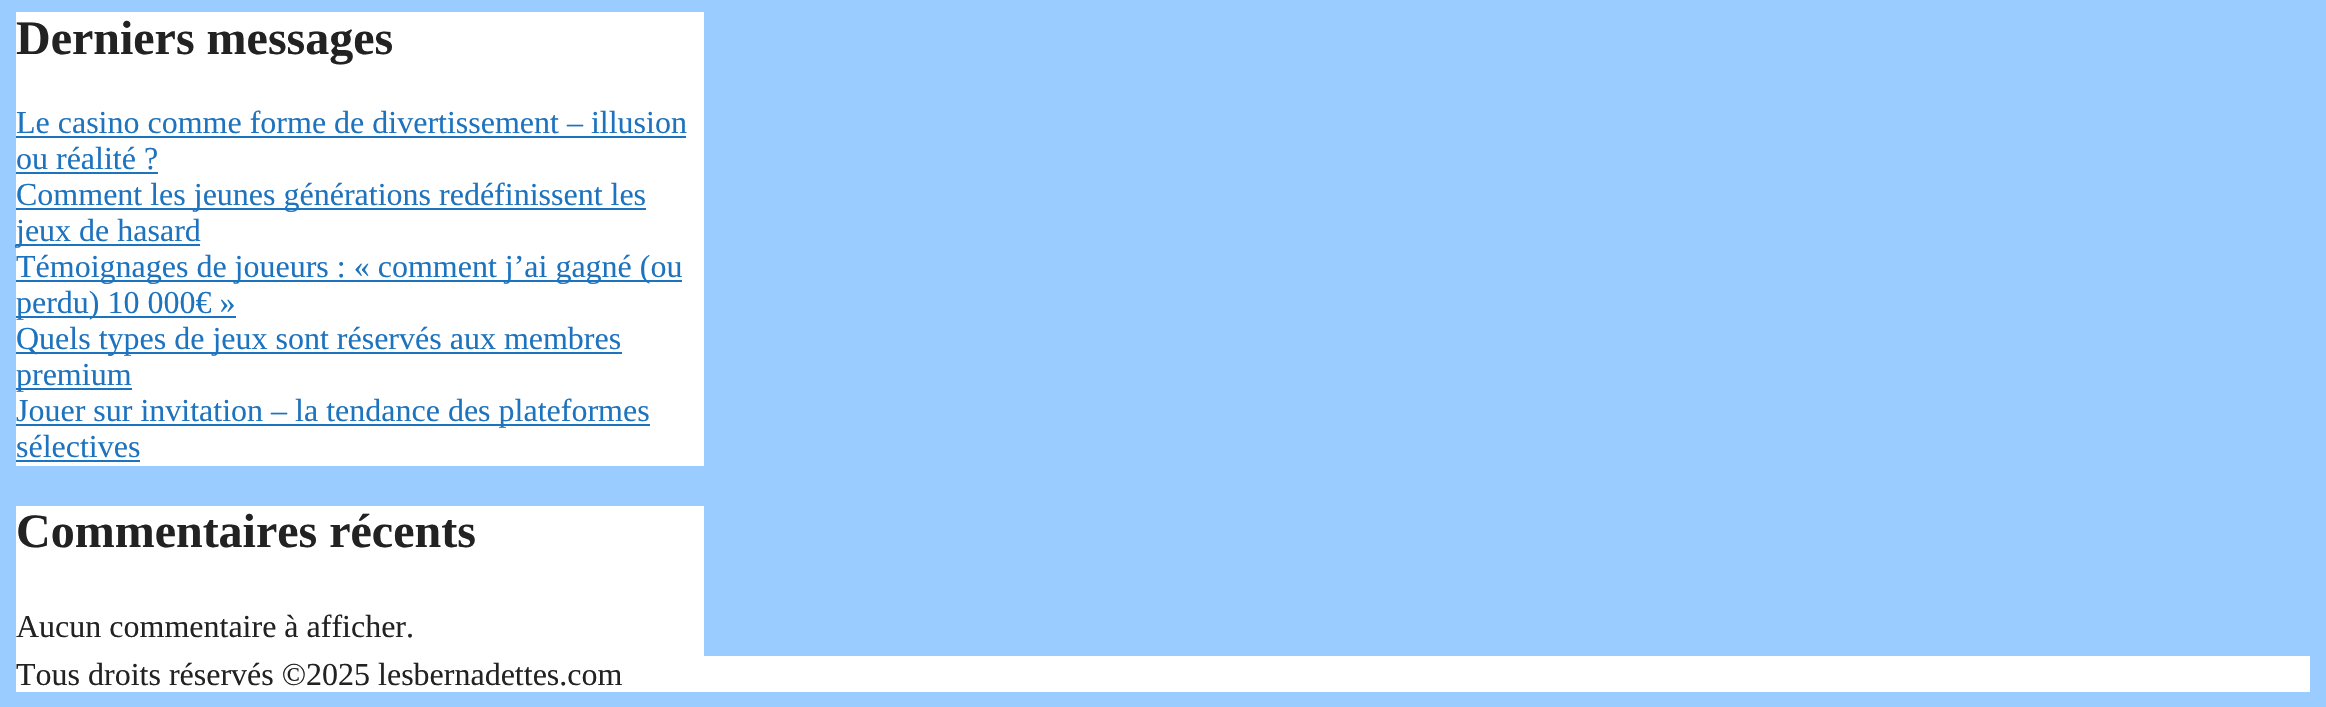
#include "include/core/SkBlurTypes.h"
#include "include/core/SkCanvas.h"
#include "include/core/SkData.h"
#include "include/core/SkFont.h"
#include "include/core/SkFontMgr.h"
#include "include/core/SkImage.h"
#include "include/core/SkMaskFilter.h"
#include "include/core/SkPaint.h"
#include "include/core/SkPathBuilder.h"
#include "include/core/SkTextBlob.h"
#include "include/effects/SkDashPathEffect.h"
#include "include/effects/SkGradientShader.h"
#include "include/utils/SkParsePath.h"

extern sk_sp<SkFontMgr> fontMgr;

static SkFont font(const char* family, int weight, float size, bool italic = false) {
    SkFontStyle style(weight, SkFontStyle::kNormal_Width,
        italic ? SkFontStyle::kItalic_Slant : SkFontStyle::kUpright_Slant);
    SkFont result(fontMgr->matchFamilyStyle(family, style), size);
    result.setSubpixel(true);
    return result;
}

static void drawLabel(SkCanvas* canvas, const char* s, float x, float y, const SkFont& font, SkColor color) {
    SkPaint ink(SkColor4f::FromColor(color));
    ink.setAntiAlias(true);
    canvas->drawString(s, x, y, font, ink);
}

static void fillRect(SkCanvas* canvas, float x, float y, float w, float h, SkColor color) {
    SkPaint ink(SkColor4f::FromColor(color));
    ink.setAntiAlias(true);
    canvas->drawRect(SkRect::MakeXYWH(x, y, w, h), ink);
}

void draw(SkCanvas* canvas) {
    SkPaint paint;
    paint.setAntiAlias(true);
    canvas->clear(0xFF9ACCFF);
    fillRect(canvas, 16, 12, 688, 454, 0xFFFFFFFF);
    SkFont font1 = font("Liberation Serif", 700, 48);
    drawLabel(canvas, "Derniers messages", 16, 54, font1, 0xFF222222);
    SkFont font2 = font("Liberation Serif", 400, 32);
    drawLabel(canvas, "Le casino comme forme de divertissement – illusion", 16, 133, font2, 0xFF1E73BE);
    fillRect(canvas, 16, 136, 670, 2, 0xFF1E73BE);
    drawLabel(canvas, "ou réalité ?", 16, 169, font2, 0xFF1E73BE);
    fillRect(canvas, 16, 172, 142, 2, 0xFF1E73BE);
    fillRect(canvas, 16, 208, 630, 2, 0xFF1E73BE);
    drawLabel(canvas, "Comment les jeunes générations redéfinissent les", 16, 205, font2, 0xFF1E73BE);
    fillRect(canvas, 16, 244, 184, 2, 0xFF1E73BE);
    drawLabel(canvas, "jeux de hasard", 16, 241, font2, 0xFF1E73BE);
    fillRect(canvas, 16, 280, 666, 2, 0xFF1E73BE);
    drawLabel(canvas, "Témoignages de joueurs : « comment j’ai gagné (ou", 16, 277, font2, 0xFF1E73BE);
    fillRect(canvas, 16, 316, 220, 2, 0xFF1E73BE);
    drawLabel(canvas, "perdu) 10 000€ »", 16, 313, font2, 0xFF1E73BE);
    fillRect(canvas, 16, 352, 606, 2, 0xFF1E73BE);
    drawLabel(canvas, "Quels types de jeux sont réservés aux membres", 16, 349, font2, 0xFF1E73BE);
    fillRect(canvas, 16, 388, 116, 2, 0xFF1E73BE);
    drawLabel(canvas, "premium", 16, 385, font2, 0xFF1E73BE);
    fillRect(canvas, 16, 424, 634, 2, 0xFF1E73BE);
    drawLabel(canvas, "Jouer sur invitation – la tendance des plateformes", 16, 421, font2, 0xFF1E73BE);
    drawLabel(canvas, "sélectives", 16, 457, font2, 0xFF1E73BE);
    fillRect(canvas, 16, 460, 124, 2, 0xFF1E73BE);
    fillRect(canvas, 16, 506, 688, 150, 0xFFFFFFFF);
    drawLabel(canvas, "Commentaires récents", 16, 547, font1, 0xFF222222);
    drawLabel(canvas, "Aucun commentaire à afficher.", 16, 637, font2, 0xFF222222);
    fillRect(canvas, 16, 656, 2294, 36, 0xFFFFFFFF);
    drawLabel(canvas, "Tous droits réservés ©2025 lesbernadettes.com", 16, 685, font2, 0xFF222222);
}
